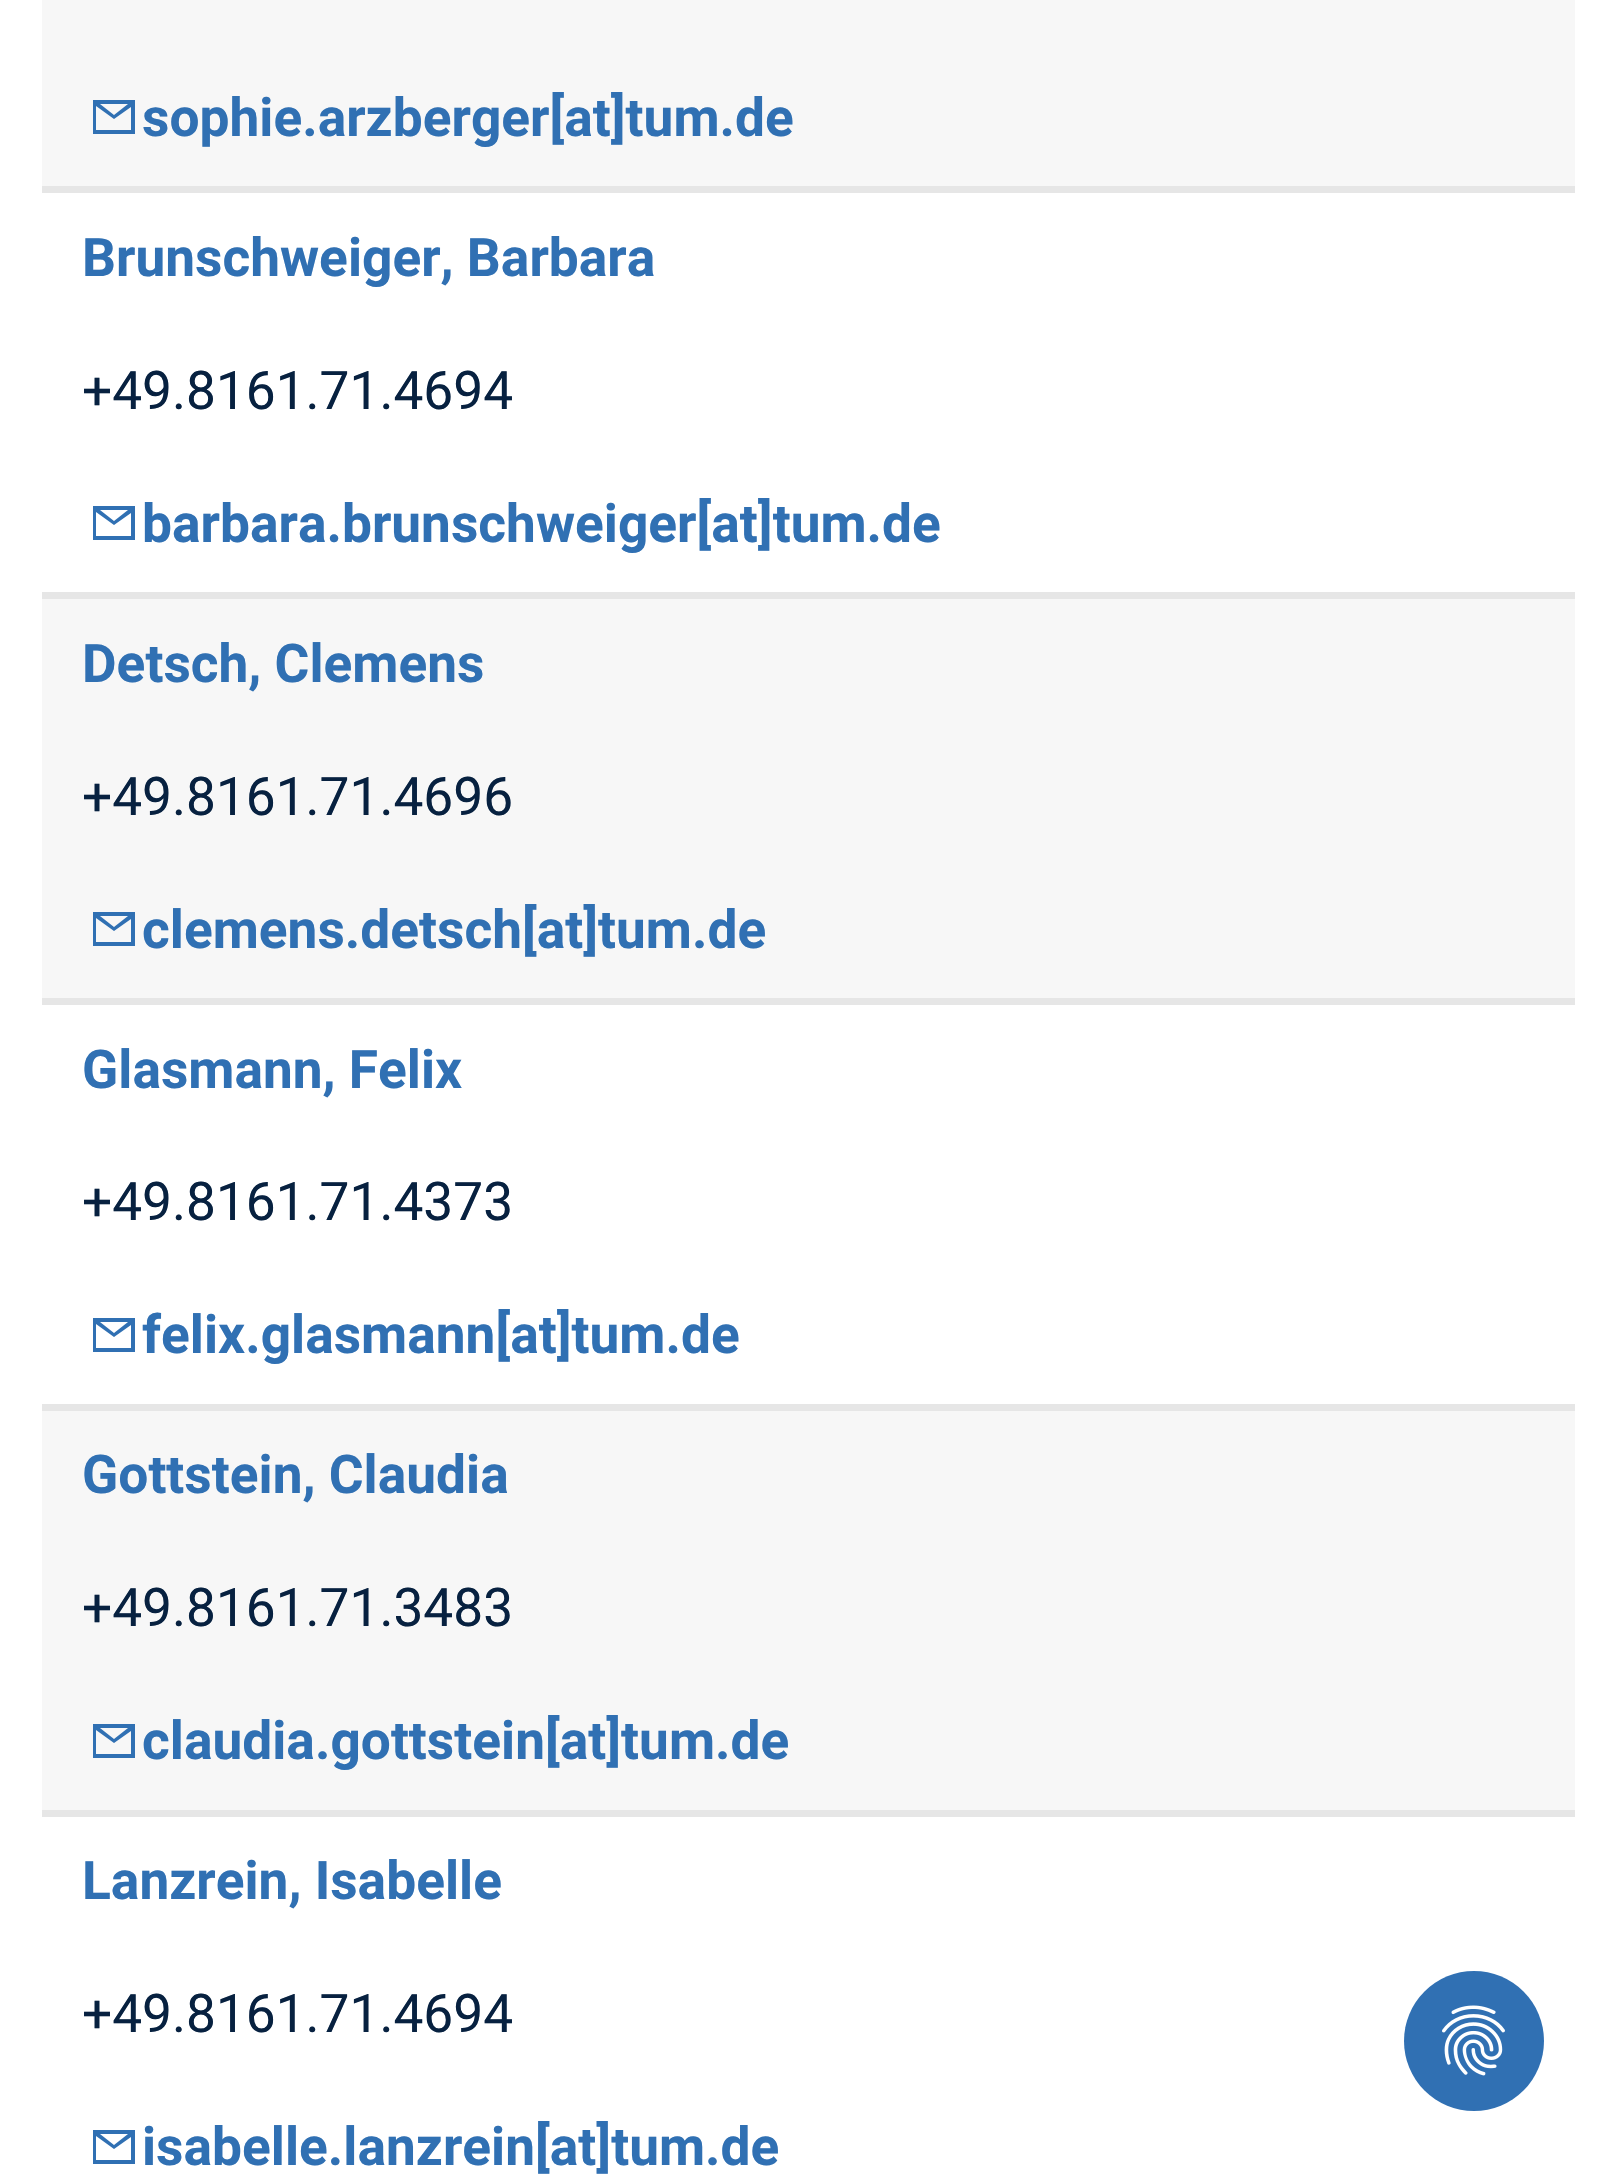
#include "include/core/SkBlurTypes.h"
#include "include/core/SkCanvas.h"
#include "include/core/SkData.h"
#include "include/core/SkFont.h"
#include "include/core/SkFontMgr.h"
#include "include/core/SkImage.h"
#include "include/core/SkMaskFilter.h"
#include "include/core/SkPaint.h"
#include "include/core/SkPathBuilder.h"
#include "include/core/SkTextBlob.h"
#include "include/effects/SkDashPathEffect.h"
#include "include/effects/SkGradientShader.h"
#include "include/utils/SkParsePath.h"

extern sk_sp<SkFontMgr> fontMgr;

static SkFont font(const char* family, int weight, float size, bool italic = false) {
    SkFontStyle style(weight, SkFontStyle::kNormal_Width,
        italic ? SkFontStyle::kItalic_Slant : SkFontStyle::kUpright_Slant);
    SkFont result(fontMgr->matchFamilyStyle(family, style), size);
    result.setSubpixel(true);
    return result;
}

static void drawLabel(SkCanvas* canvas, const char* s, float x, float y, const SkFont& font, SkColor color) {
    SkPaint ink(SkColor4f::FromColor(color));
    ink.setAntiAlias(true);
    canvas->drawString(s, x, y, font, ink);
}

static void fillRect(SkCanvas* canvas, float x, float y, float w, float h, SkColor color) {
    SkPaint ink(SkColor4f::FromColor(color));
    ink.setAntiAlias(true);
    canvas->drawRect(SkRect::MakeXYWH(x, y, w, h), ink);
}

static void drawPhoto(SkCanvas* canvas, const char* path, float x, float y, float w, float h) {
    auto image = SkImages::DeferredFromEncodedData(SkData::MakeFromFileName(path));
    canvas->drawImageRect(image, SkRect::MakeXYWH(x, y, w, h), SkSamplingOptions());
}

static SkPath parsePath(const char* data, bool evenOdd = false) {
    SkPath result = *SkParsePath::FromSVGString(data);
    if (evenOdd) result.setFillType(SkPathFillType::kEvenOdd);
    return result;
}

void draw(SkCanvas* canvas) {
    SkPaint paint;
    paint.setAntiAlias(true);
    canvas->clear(0xFFFFFFFF);
    fillRect(canvas, 42, 0, 1533, 186, 0xFFF7F7F7);
    paint.setColor(0xFF3070B3);
    canvas->drawPath(parsePath("M93 100V134H135V100ZM128 104L114 115L100 104ZM96 130V106L114 119L131 107V130Z"), paint);
    SkFont font1 = font("Roboto", 700, 53.25f);
    drawLabel(canvas, "sophie.arzberger[at]tum.de", 142, 136, font1, 0xFF3070B3);
    fillRect(canvas, 42, 186, 1533, 7, 0xFFE6E6E6);
    drawLabel(canvas, "Brunschweiger, Barbara", 82, 276, font1, 0xFF3070B3);
    SkFont font2 = font("Roboto", 400, 53.25f);
    drawLabel(canvas, "+49.8161.71.4694", 82, 409, font2, 0xFF072140);
    canvas->drawPath(parsePath("M93 506V540H135V506ZM128 510L114 521L100 510ZM96 536V512L114 525L131 513V536Z"), paint);
    drawLabel(canvas, "barbara.brunschweiger[at]tum.de", 142, 542, font1, 0xFF3070B3);
    fillRect(canvas, 42, 599, 1533, 399, 0xFFF7F7F7);
    fillRect(canvas, 42, 592, 1533, 7, 0xFFE6E6E6);
    drawLabel(canvas, "Detsch, Clemens", 82, 682, font1, 0xFF3070B3);
    drawLabel(canvas, "+49.8161.71.4696", 82, 815, font2, 0xFF072140);
    canvas->drawPath(parsePath("M93 912V946H135V912ZM128 916L114 927L100 916ZM96 942V918L114 931L131 919V942Z"), paint);
    drawLabel(canvas, "clemens.detsch[at]tum.de", 142, 948, font1, 0xFF3070B3);
    fillRect(canvas, 42, 998, 1533, 7, 0xFFE6E6E6);
    drawLabel(canvas, "Glasmann, Felix", 82, 1088, font1, 0xFF3070B3);
    drawLabel(canvas, "+49.8161.71.4373", 82, 1220, font2, 0xFF072140);
    canvas->drawPath(parsePath("M93 1318V1352H135V1318ZM128 1322L114 1333L100 1322ZM96 1348V1324L114 1337L131 1325V1348Z"), paint);
    drawLabel(canvas, "felix.glasmann[at]tum.de", 142, 1353, font1, 0xFF3070B3);
    fillRect(canvas, 42, 1411, 1533, 399, 0xFFF7F7F7);
    fillRect(canvas, 42, 1404, 1533, 7, 0xFFE6E6E6);
    drawLabel(canvas, "Gottstein, Claudia", 82, 1493, font1, 0xFF3070B3);
    drawLabel(canvas, "+49.8161.71.3483", 82, 1626, font2, 0xFF072140);
    canvas->drawPath(parsePath("M93 1724V1758H135V1724ZM128 1728L114 1739L100 1728ZM96 1754V1730L114 1743L131 1731V1754Z"), paint);
    drawLabel(canvas, "claudia.gottstein[at]tum.de", 142, 1759, font1, 0xFF3070B3);
    fillRect(canvas, 42, 1810, 1533, 7, 0xFFE6E6E6);
    drawLabel(canvas, "Lanzrein, Isabelle", 82, 1899, font1, 0xFF3070B3);
    drawLabel(canvas, "+49.8161.71.4694", 82, 2032, font2, 0xFF072140);
    canvas->drawPath(parsePath("M93 2130V2164H135V2130ZM128 2134L114 2145L100 2134ZM96 2160V2136L114 2149L131 2137V2160Z"), paint);
    drawLabel(canvas, "isabelle.lanzrein[at]tum.de", 142, 2165, font1, 0xFF3070B3);
    canvas->drawCircle(1474, 2041, 70, paint);
    drawPhoto(canvas, "assets/img1.png", 1442, 2005, 63, 71);
}
